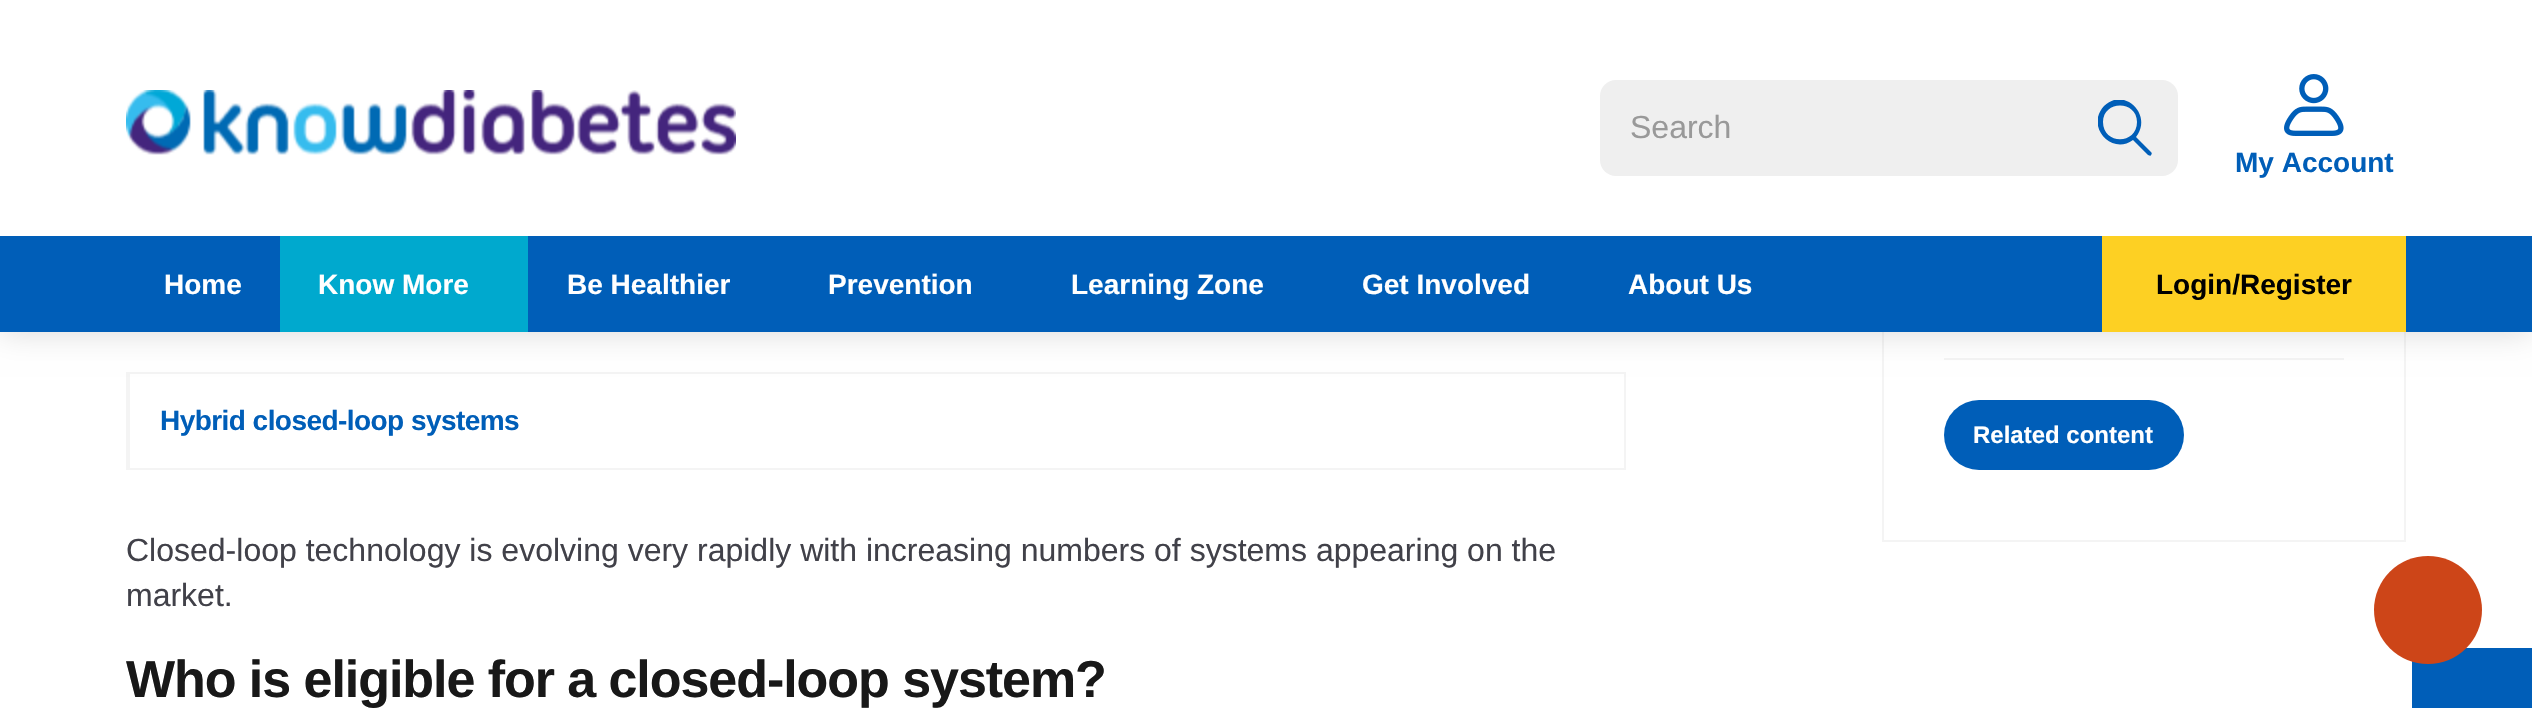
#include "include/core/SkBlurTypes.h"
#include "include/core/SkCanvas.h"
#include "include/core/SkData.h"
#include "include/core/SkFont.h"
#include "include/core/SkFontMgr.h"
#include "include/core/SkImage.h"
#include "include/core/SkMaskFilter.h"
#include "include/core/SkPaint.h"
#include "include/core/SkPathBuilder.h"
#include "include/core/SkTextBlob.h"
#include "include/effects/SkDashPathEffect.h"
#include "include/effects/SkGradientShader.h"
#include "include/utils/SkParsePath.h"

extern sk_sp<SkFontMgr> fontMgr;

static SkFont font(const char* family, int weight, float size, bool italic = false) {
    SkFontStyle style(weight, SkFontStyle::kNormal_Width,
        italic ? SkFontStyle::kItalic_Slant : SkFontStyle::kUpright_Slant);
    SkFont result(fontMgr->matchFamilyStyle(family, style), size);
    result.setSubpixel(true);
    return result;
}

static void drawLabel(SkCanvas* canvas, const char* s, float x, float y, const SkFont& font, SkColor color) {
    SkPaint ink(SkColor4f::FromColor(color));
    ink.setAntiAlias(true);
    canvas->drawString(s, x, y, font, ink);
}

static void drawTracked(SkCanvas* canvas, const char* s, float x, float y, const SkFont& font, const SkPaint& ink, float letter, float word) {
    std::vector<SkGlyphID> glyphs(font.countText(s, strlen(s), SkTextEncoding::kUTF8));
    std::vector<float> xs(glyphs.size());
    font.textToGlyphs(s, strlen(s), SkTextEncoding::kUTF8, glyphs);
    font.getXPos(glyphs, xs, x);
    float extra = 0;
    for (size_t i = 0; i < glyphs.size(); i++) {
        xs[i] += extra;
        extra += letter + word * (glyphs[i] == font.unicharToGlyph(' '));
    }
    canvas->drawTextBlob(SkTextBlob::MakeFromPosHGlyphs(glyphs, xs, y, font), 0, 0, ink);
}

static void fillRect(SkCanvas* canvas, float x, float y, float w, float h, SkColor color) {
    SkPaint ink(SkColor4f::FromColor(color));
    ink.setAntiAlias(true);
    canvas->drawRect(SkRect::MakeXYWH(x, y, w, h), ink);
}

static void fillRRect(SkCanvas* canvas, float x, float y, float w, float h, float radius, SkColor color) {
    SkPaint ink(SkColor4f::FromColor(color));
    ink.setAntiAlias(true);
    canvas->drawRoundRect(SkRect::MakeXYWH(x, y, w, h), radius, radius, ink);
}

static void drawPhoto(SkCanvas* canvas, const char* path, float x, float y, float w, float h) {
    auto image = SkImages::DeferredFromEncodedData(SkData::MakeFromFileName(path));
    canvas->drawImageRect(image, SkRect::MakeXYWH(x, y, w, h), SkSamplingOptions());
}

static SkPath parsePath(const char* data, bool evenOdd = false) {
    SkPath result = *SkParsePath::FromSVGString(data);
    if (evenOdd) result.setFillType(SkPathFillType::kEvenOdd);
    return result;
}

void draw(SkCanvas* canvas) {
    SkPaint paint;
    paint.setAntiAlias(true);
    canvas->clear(0xFFFFFFFF);
    fillRect(canvas, 126, 372, 1500, 2, 0xFFF4F4F4);
    fillRect(canvas, 1624, 372, 2, 98, 0xFFF4F4F4);
    fillRect(canvas, 126, 468, 1500, 2, 0xFFF4F4F4);
    fillRect(canvas, 126, 372, 4, 98, 0xFFF4F4F4);
    paint.setStroke(true);
    paint.setStrokeWidth(2);
    paint.setColor(0xFFF4F4F4);
    canvas->drawRect(SkRect::MakeXYWH(1883, -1, 522, 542), paint);
    fillRect(canvas, 1944, 358, 400, 2, 0xFFF4F4F4);
    paint.setStroke(false);
    paint.setColor(0x26000000);
    paint.setMaskFilter(SkMaskFilter::MakeBlur(kNormal_SkBlurStyle, 15));
    canvas->drawRect(SkRect::MakeXYWH(0, 0, 2532, 332), paint);
    paint.setMaskFilter(nullptr);
    fillRect(canvas, 0, 0, 2532, 236, 0xFFFFFFFF);
    drawPhoto(canvas, "assets/img1.png", 126, 90, 610, 65);
    fillRRect(canvas, 1600, 80, 578, 96, 16, 0xFFEFEFEF);
    SkFont font1 = font("Liberation Sans", 400, 32);
    drawLabel(canvas, "Search", 1630, 138, font1, 0xFF999999);
    paint.setColor(0xFF005EB8);
    canvas->drawPath(parsePath("M2151 152C2152 153 2152 154 2151 155C2151 156 2150 156 2148 155L2133 140C2118 151 2101 140 2098 126V117C2099 113 2101 109 2104 106C2107 103 2111 101 2114 100H2124C2138 104 2148 122 2136 137ZM2103 122C2103 145 2137 145 2137 122C2137 100 2103 100 2103 122Z", true), paint);
    drawPhoto(canvas, "assets/img2.png", 2284, 74, 60, 62);
    SkFont font2 = font("Liberation Sans", 700, 28);
    drawLabel(canvas, "My Account", 2235, 172, font2, 0xFF005EB8);
    fillRect(canvas, 0, 236, 2532, 96, 0xFF005EB8);
    drawLabel(canvas, "Home", 164, 294, font2, 0xFFFFFFFF);
    fillRect(canvas, 280, 236, 248, 96, 0xFF00A9CE);
    drawLabel(canvas, "Know More", 318, 294, font2, 0xFFFFFFFF);
    drawLabel(canvas, "Be Healthier", 567, 294, font2, 0xFFFFFFFF);
    drawLabel(canvas, "Prevention", 828, 294, font2, 0xFFFFFFFF);
    drawLabel(canvas, "Learning Zone", 1071, 294, font2, 0xFFFFFFFF);
    drawLabel(canvas, "Get Involved", 1362, 294, font2, 0xFFFFFFFF);
    drawLabel(canvas, "About Us", 1628, 294, font2, 0xFFFFFFFF);
    fillRect(canvas, 2102, 236, 304, 96, 0xFFFDD023);
    drawLabel(canvas, "Login/Register", 2156, 294, font2, 0xFF000000);
    drawTracked(canvas, "Hybrid closed-loop systems", 160, 430, font2, paint, -0.55f, 0);
    drawLabel(canvas, "Closed-loop technology is evolving very rapidly with increasing numbers of systems appearing on the", 126, 561, font1, 0xFF414149);
    drawLabel(canvas, "market.", 126, 606, font1, 0xFF414149);
    SkFont font3 = font("Liberation Sans", 700, 52);
    paint.setColor(0xFF181818);
    drawTracked(canvas, "Who is eligible for a closed-loop system?", 126, 697, font3, paint, -1.05f, 0);
    fillRRect(canvas, 1944, 400, 240, 70, 35, 0xFF005EB8);
    SkFont font4 = font("Liberation Sans", 700, 24);
    drawLabel(canvas, "Related content", 1973, 443, font4, 0xFFFFFFFF);
    fillRect(canvas, 2412, 648, 120, 60, 0xFF005EB8);
    paint.setColor(0xFFCD4518);
    canvas->drawCircle(2428, 610, 54, paint);
}
